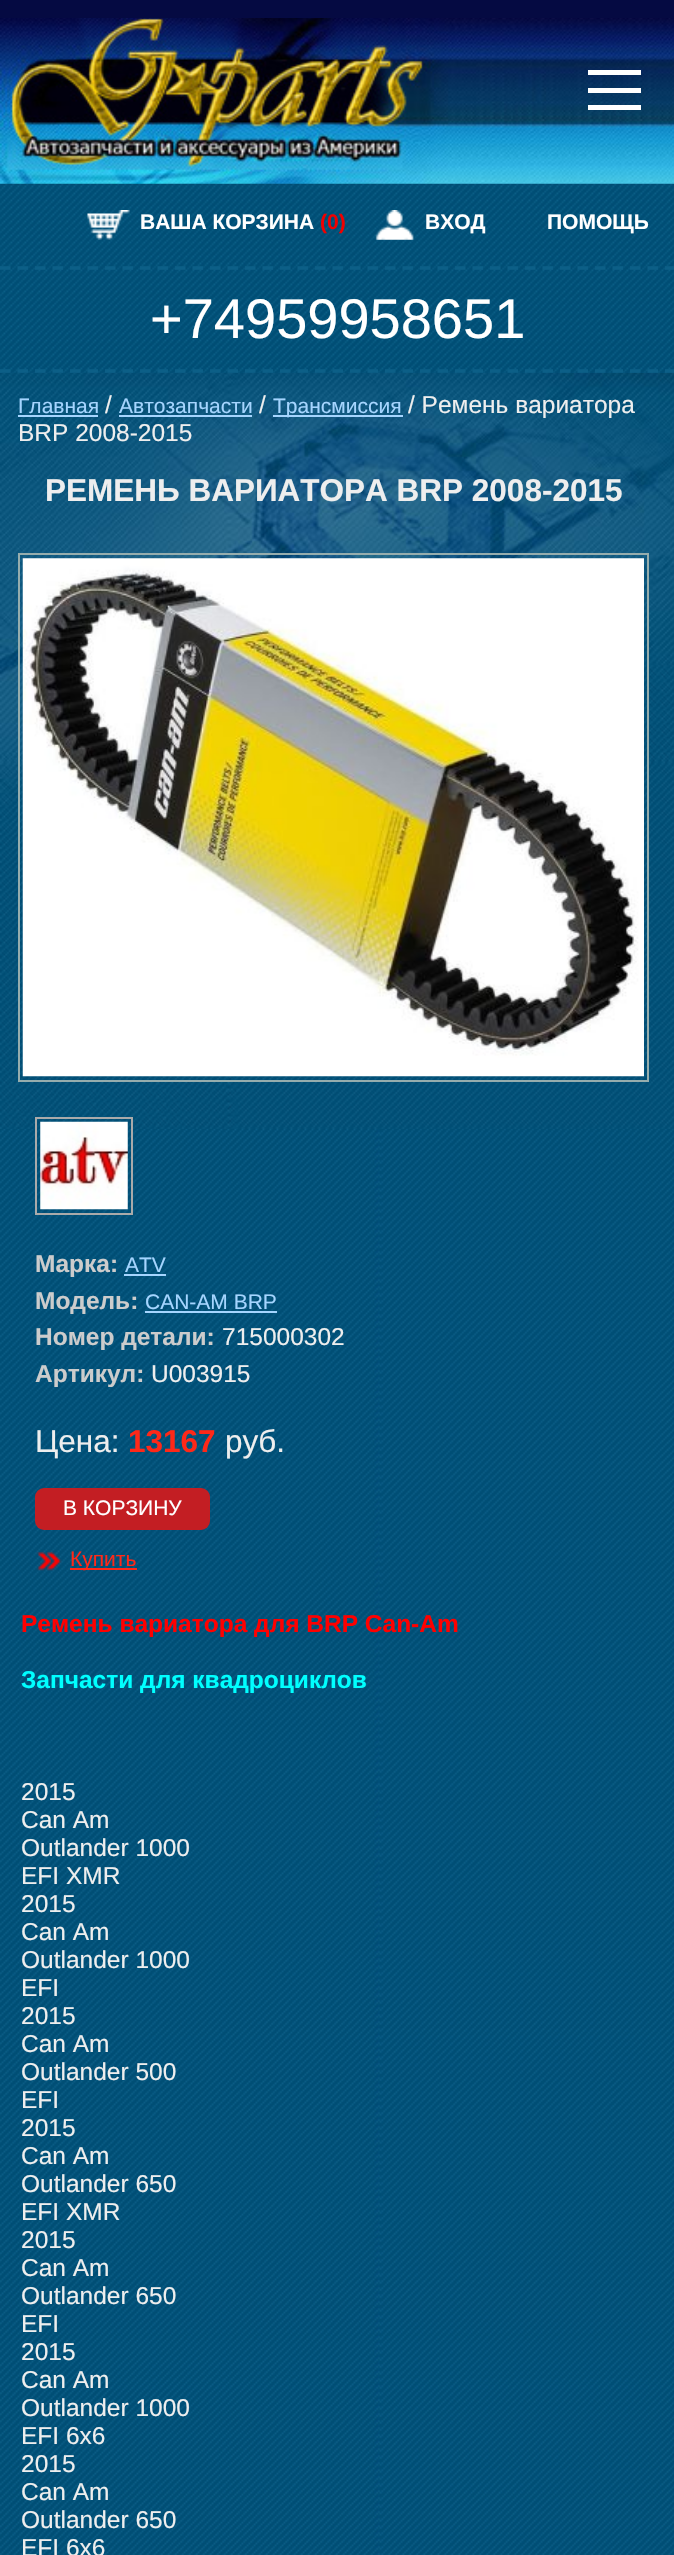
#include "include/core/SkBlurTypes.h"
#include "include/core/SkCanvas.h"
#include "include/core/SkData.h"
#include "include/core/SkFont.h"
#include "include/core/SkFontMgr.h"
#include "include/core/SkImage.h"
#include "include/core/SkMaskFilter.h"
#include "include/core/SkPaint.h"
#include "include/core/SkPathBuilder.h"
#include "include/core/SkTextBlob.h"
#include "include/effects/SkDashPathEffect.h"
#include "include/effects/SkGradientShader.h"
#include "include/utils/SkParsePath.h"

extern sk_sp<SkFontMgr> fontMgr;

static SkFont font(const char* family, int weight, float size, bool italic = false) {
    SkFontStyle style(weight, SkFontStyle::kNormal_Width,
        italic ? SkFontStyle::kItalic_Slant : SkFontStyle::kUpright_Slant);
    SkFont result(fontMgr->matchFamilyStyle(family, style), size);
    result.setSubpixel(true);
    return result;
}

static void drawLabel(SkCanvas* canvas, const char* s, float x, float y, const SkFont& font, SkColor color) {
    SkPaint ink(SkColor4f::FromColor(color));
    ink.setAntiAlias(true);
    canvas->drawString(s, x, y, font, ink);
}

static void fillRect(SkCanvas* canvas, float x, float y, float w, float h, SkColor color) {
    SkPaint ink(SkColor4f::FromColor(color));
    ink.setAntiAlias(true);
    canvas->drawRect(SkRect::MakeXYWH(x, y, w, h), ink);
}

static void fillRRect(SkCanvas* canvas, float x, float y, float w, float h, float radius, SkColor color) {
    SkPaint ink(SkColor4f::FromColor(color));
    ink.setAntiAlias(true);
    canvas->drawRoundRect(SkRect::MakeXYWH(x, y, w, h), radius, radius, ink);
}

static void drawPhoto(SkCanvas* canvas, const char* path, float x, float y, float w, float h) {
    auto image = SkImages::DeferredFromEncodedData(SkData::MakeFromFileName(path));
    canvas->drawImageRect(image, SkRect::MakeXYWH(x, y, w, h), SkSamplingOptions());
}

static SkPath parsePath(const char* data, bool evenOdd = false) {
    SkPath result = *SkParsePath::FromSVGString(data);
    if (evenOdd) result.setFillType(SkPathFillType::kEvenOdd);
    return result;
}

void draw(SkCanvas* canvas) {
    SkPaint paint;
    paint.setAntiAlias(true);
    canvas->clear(0xFFFFFFFF);
    drawPhoto(canvas, "assets/img2.png", 0, 18, 674, 166);
    fillRect(canvas, 588, 88, 53, 5, 0xFFFFFFFF);
    fillRect(canvas, 588, 70, 53, 5, 0xFFFFFFFF);
    fillRect(canvas, 588, 105, 53, 5, 0xFFFFFFFF);
    drawPhoto(canvas, "assets/img1.png", 0, 372, 674, 2183);
    fillRect(canvas, 0, 0, 674, 18, 0xFF050A42);
    drawPhoto(canvas, "assets/img6.png", 0, 372, 674, 757);
    drawPhoto(canvas, "assets/img3.png", 0, 183, 674, 190);
    paint.setStroke(true);
    paint.setStrokeWidth(3.5f);
    paint.setColor(0xFF0C5F87);
    paint.setPathEffect(SkDashPathEffect::Make({{10.5f, 7}}, 0));
    canvas->drawPath(parsePath("M0 268H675.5"), paint);
    paint.setPathEffect(nullptr);
    drawPhoto(canvas, "assets/img4.png", 87, 210, 43, 30);
    SkFont font1 = font("Liberation Sans", 700, 21);
    drawLabel(canvas, "ВАША КОРЗИНА", 140, 229, font1, 0xFFFFFFFF);
    drawLabel(canvas, "(0)", 320, 229, font1, 0xFFF00000);
    drawPhoto(canvas, "assets/img5.png", 375, 210, 39, 30);
    drawLabel(canvas, "ВХОД", 425, 229, font1, 0xFFFFFFFF);
    drawLabel(canvas, "ПОМОЩЬ", 547, 229, font1, 0xFFFFFFFF);
    paint.setPathEffect(SkDashPathEffect::Make({{10.5f, 7}}, 0));
    canvas->drawPath(parsePath("M0 371H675.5"), paint);
    paint.setPathEffect(nullptr);
    SkFont font2 = font("Liberation Sans", 400, 56);
    drawLabel(canvas, "+74959958651", 150, 338, font2, 0xFFFFFFFF);
    SkFont font3 = font("Liberation Sans", 400, 21);
    drawLabel(canvas, "Главная", 18, 413, font3, 0xFFA5D5FF);
    fillRect(canvas, 18, 415, 80, 2, 0xFFA5D5FF);
    SkFont font4 = font("Liberation Sans", 400, 24.5f);
    drawLabel(canvas, "/", 105, 413, font4, 0xFFEEEEEE);
    drawLabel(canvas, "Автозапчасти", 119, 413, font3, 0xFFA5D5FF);
    fillRect(canvas, 119, 415, 133, 2, 0xFFA5D5FF);
    drawLabel(canvas, "/", 259, 413, font4, 0xFFEEEEEE);
    fillRect(canvas, 273, 415, 130, 2, 0xFFA5D5FF);
    drawLabel(canvas, "Трансмиссия", 273, 413, font3, 0xFFA5D5FF);
    drawLabel(canvas, "/ Ремень вариатора", 408, 413, font4, 0xFFEEEEEE);
    drawLabel(canvas, "BRP 2008-2015", 18, 441, font4, 0xFFEEEEEE);
    SkFont font5 = font("Liberation Sans", 700, 31.5f);
    drawLabel(canvas, "РЕМЕНЬ ВАРИАТОРА BRP 2008-2015", 45, 501, font5, 0xFFEEEEEE);
    paint.setStrokeWidth(2);
    paint.setColor(0xFF96ADAD);
    canvas->drawRect(SkRect::MakeXYWH(19, 554, 629, 527), paint);
    drawPhoto(canvas, "assets/img7.png", 22, 558, 622, 519);
    paint.setColor(0xFFAAAAAA);
    canvas->drawRect(SkRect::MakeXYWH(36, 1118, 96, 96), paint);
    drawPhoto(canvas, "assets/img8.png", 40, 1121, 88, 89);
    SkFont font6 = font("Liberation Sans", 700, 24.5f);
    drawLabel(canvas, "Марка:", 35, 1272, font6, 0xFFCCCCCC);
    drawLabel(canvas, "ATV", 125, 1272, font3, 0xFFA5D5FF);
    fillRect(canvas, 124, 1274, 42, 2, 0xFFA5D5FF);
    drawLabel(canvas, "Модель:", 35, 1309, font6, 0xFFCCCCCC);
    drawLabel(canvas, "CAN-AM BRP", 145, 1309, font3, 0xFFA5D5FF);
    fillRect(canvas, 145, 1311, 132, 2, 0xFFA5D5FF);
    drawLabel(canvas, "Номер детали:", 35, 1345, font6, 0xFFCCCCCC);
    drawLabel(canvas, "715000302", 222, 1345, font4, 0xFFEEEEEE);
    drawLabel(canvas, "Артикул:", 35, 1382, font6, 0xFFCCCCCC);
    drawLabel(canvas, "U003915", 151, 1382, font4, 0xFFEEEEEE);
    SkFont font7 = font("Liberation Sans", 400, 31.5f);
    drawLabel(canvas, "Цена:", 35, 1452, font7, 0xFFEEEEEE);
    drawLabel(canvas, "13167", 128, 1452, font5, 0xFFFF2818);
    drawLabel(canvas, "руб.", 225, 1452, font7, 0xFFEEEEEE);
    fillRRect(canvas, 35, 1488, 175, 42, 9, 0xFFC31E23);
    drawLabel(canvas, "В КОРЗИНУ", 63, 1515, font3, 0xFFFFFFFF);
    drawPhoto(canvas, "assets/img9.png", 36, 1551, 26, 20);
    fillRect(canvas, 70, 1568, 67, 2, 0xFFFF2818);
    drawLabel(canvas, "Купить", 70, 1566, font3, 0xFFFF2818);
    drawLabel(canvas, "Ремень вариатора для BRP Can-Am", 21, 1632, font6, 0xFFFF0000);
    drawLabel(canvas, "Запчасти для квадроциклов", 21, 1688, font6, 0xFF00FFFF);
    drawLabel(canvas, "2015", 21, 1800, font4, 0xFFEEEEEE);
    drawLabel(canvas, "Can Am", 21, 1828, font4, 0xFFEEEEEE);
    drawLabel(canvas, "Outlander 1000", 21, 1856, font4, 0xFFEEEEEE);
    drawLabel(canvas, "EFI XMR", 21, 1884, font4, 0xFFEEEEEE);
    drawLabel(canvas, "2015", 21, 1912, font4, 0xFFEEEEEE);
    drawLabel(canvas, "Can Am", 21, 1940, font4, 0xFFEEEEEE);
    drawLabel(canvas, "Outlander 1000", 21, 1968, font4, 0xFFEEEEEE);
    drawLabel(canvas, "EFI", 21, 1996, font4, 0xFFEEEEEE);
    drawLabel(canvas, "2015", 21, 2024, font4, 0xFFEEEEEE);
    drawLabel(canvas, "Can Am", 21, 2052, font4, 0xFFEEEEEE);
    drawLabel(canvas, "Outlander 500", 21, 2080, font4, 0xFFEEEEEE);
    drawLabel(canvas, "EFI", 21, 2108, font4, 0xFFEEEEEE);
    drawLabel(canvas, "2015", 21, 2136, font4, 0xFFEEEEEE);
    drawLabel(canvas, "Can Am", 21, 2164, font4, 0xFFEEEEEE);
    drawLabel(canvas, "Outlander 650", 21, 2192, font4, 0xFFEEEEEE);
    drawLabel(canvas, "EFI XMR", 21, 2220, font4, 0xFFEEEEEE);
    drawLabel(canvas, "2015", 21, 2248, font4, 0xFFEEEEEE);
    drawLabel(canvas, "Can Am", 21, 2276, font4, 0xFFEEEEEE);
    drawLabel(canvas, "Outlander 650", 21, 2304, font4, 0xFFEEEEEE);
    drawLabel(canvas, "EFI", 21, 2332, font4, 0xFFEEEEEE);
    drawLabel(canvas, "2015", 21, 2360, font4, 0xFFEEEEEE);
    drawLabel(canvas, "Can Am", 21, 2388, font4, 0xFFEEEEEE);
    drawLabel(canvas, "Outlander 1000", 21, 2416, font4, 0xFFEEEEEE);
    drawLabel(canvas, "EFI 6x6", 21, 2444, font4, 0xFFEEEEEE);
    drawLabel(canvas, "2015", 21, 2472, font4, 0xFFEEEEEE);
    drawLabel(canvas, "Can Am", 21, 2500, font4, 0xFFEEEEEE);
    drawLabel(canvas, "Outlander 650", 21, 2528, font4, 0xFFEEEEEE);
    drawLabel(canvas, "EFI 6x6", 21, 2556, font4, 0xFFEEEEEE);
}
